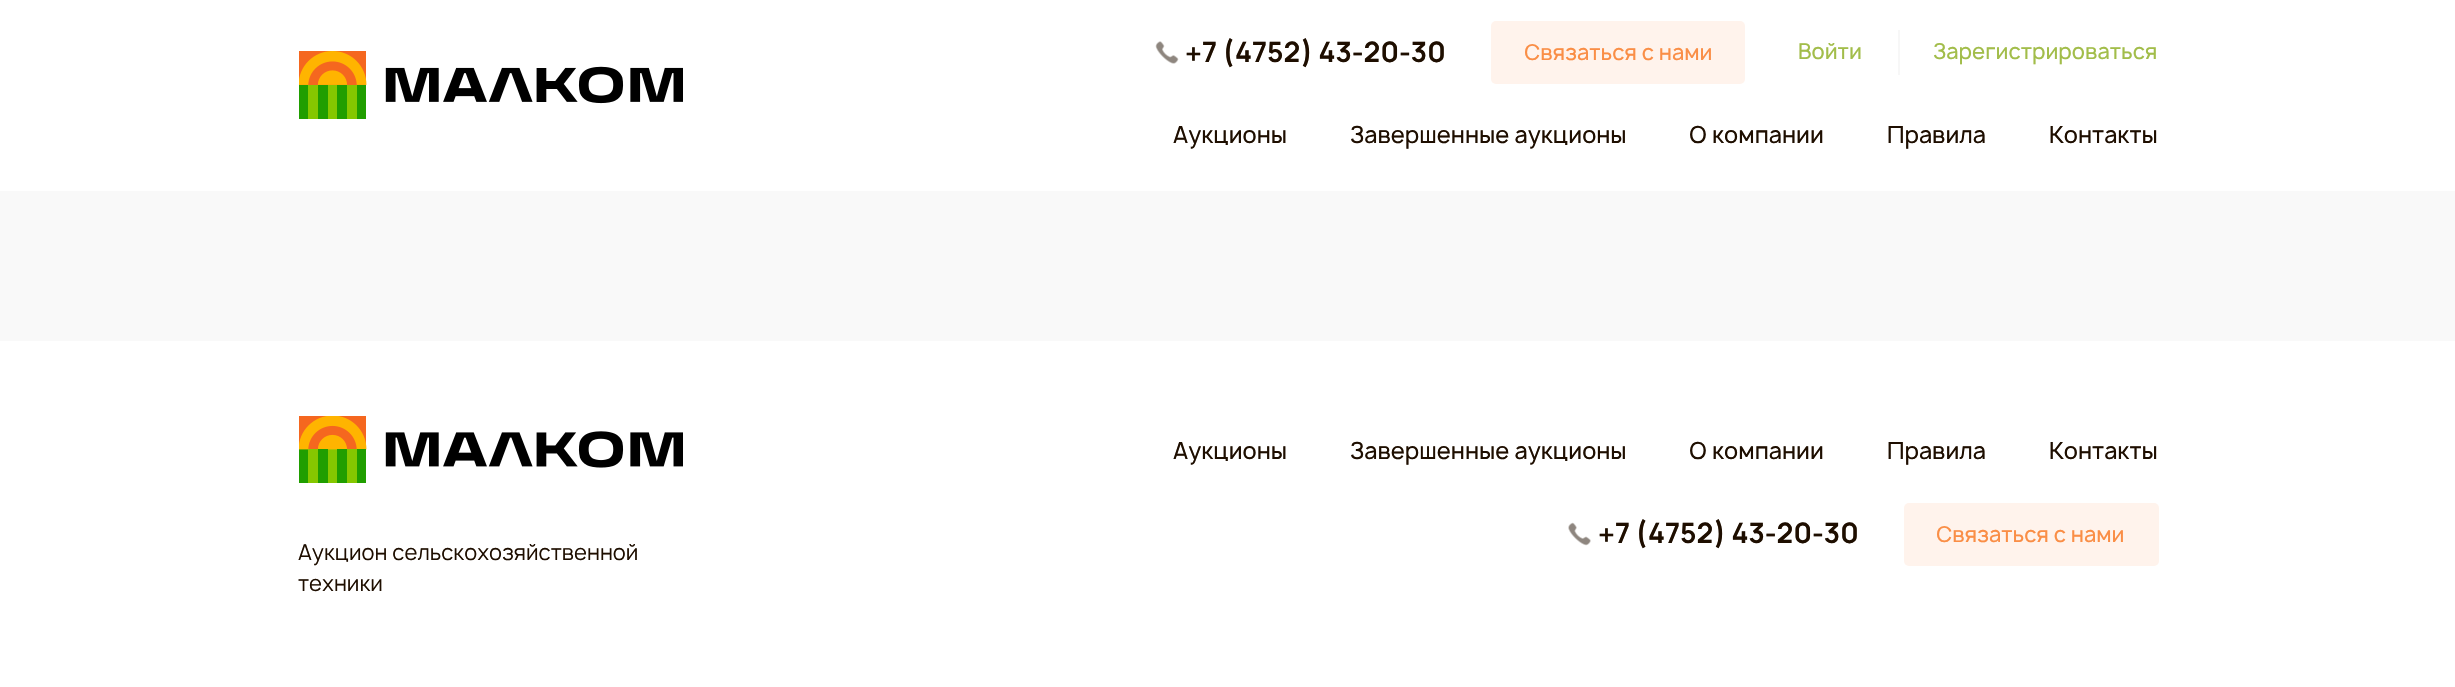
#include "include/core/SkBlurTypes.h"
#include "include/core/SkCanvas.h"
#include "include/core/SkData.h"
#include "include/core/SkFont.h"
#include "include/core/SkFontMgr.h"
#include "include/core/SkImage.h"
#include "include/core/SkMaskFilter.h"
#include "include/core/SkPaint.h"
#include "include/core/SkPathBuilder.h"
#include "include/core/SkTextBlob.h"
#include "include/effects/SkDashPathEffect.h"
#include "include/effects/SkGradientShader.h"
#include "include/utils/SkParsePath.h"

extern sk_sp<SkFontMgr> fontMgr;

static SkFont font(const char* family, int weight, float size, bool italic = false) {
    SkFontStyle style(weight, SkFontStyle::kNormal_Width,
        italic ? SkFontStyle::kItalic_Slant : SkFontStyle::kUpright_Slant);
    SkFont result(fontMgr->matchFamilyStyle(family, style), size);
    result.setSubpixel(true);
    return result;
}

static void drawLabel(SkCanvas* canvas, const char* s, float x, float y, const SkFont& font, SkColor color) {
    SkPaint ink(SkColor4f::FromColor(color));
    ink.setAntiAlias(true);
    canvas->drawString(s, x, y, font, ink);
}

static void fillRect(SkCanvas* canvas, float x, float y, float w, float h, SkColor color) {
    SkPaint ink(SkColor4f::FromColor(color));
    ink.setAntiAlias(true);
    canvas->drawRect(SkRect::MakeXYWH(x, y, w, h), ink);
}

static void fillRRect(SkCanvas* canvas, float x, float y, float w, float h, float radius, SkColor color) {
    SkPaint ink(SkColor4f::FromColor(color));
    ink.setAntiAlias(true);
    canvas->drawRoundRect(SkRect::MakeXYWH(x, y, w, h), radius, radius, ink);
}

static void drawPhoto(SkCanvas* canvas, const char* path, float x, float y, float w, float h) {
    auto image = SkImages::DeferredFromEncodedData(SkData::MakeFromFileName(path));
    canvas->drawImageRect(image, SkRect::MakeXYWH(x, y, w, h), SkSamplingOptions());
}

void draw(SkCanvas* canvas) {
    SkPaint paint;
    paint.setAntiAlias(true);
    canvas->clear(0xFFF9F9F9);
    fillRect(canvas, 0, 0, 2455, 191, 0xFFFFFFFF);
    drawPhoto(canvas, "assets/img1.png", 299, 51, 384, 68);
    drawPhoto(canvas, "assets/img2.png", 1155, 41, 24, 23);
    SkFont font1 = font("Manrope", 700, 27);
    drawLabel(canvas, "+7 (4752) 43-20-30", 1185, 62, font1, 0xFF1E0E00);
    fillRRect(canvas, 1491, 21, 254, 63, 5, 0xFFFFF3EC);
    SkFont font2 = font("Manrope", 500, 21);
    drawLabel(canvas, "Связаться с нами", 1524, 60, font2, 0xFFFA8E46);
    drawLabel(canvas, "Войти", 1798, 59, font2, 0xFFA2BD4A);
    fillRect(canvas, 1898, 30, 2, 45, 0xFFF7F7F7);
    drawLabel(canvas, "Зарегистрироваться", 1933, 59, font2, 0xFFA2BD4A);
    SkFont font3 = font("Manrope", 500, 22.5f);
    drawLabel(canvas, "Аукционы", 1173, 143, font3, 0xFF1E0E00);
    drawLabel(canvas, "Завершенные аукционы", 1350, 143, font3, 0xFF1E0E00);
    drawLabel(canvas, "О компании", 1689, 143, font3, 0xFF1E0E00);
    drawLabel(canvas, "Правила", 1887, 143, font3, 0xFF1E0E00);
    drawLabel(canvas, "Контакты", 2049, 143, font3, 0xFF1E0E00);
    fillRect(canvas, 0, 341, 2455, 346, 0xFFFFFFFF);
    drawLabel(canvas, "Аукционы", 1173, 459, font3, 0xFF1E0E00);
    drawLabel(canvas, "Завершенные аукционы", 1350, 459, font3, 0xFF1E0E00);
    drawLabel(canvas, "О компании", 1689, 459, font3, 0xFF1E0E00);
    drawLabel(canvas, "Правила", 1887, 459, font3, 0xFF1E0E00);
    drawLabel(canvas, "Контакты", 2049, 459, font3, 0xFF1E0E00);
    drawPhoto(canvas, "assets/img3.png", 1568, 522, 23, 24);
    drawLabel(canvas, "+7 (4752) 43-20-30", 1598, 543, font1, 0xFF1E0E00);
    fillRRect(canvas, 1904, 503, 255, 63, 5, 0xFFFFF3EC);
    drawLabel(canvas, "Связаться с нами", 1936, 542, font2, 0xFFFA8E46);
    drawPhoto(canvas, "assets/img4.png", 299, 416, 384, 67);
    SkFont font4 = font("Manrope", 400, 21);
    drawLabel(canvas, "Аукцион сельскохозяйственной", 298, 560, font4, 0xFF1E0E00);
    drawLabel(canvas, "техники", 298, 591, font4, 0xFF1E0E00);
}
